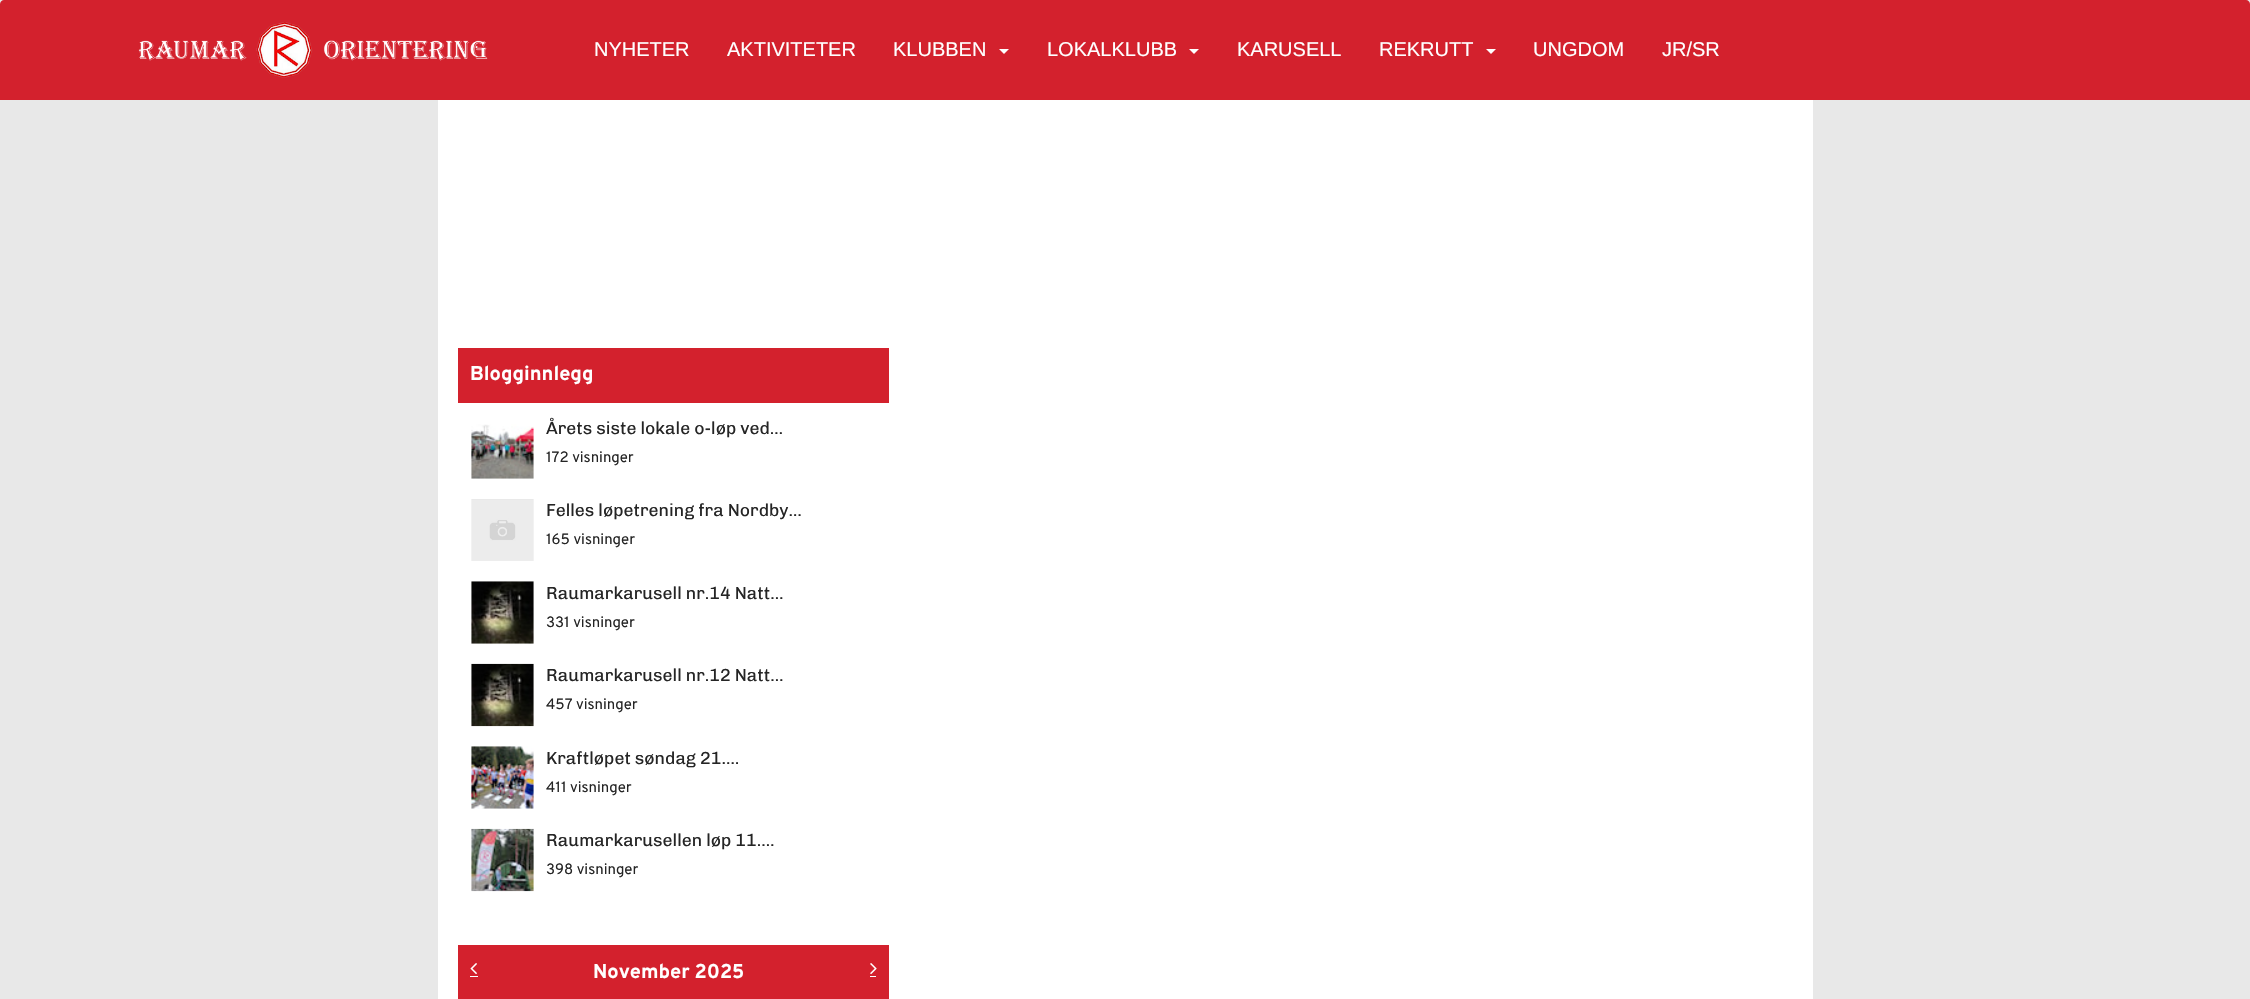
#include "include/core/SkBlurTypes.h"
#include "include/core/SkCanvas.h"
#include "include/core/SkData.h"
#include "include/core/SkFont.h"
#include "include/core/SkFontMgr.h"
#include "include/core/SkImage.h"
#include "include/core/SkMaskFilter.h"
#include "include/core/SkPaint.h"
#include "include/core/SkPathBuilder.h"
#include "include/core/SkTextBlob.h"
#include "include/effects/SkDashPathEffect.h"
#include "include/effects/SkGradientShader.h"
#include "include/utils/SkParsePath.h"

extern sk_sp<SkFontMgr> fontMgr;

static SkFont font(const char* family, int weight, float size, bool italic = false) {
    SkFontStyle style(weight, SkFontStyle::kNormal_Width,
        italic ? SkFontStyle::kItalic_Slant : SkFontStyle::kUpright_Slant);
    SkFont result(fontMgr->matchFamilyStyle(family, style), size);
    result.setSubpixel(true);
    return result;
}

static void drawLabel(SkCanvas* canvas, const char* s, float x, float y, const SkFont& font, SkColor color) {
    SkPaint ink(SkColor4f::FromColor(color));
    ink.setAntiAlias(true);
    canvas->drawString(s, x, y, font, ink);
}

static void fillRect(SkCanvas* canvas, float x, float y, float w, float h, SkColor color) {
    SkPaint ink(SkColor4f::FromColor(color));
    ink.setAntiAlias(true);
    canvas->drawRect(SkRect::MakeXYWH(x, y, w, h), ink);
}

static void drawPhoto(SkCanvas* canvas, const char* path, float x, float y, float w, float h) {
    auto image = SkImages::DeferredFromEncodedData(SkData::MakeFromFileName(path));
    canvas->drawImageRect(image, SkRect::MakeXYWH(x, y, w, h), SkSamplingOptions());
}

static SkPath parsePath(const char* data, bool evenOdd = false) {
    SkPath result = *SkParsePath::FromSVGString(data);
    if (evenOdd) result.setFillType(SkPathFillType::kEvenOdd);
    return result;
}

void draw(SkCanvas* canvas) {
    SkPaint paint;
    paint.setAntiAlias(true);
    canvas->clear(0xFFE8E8E8);
    paint.setColor(0xFFD3212D);
    canvas->drawPath(parsePath("M4 0H2246C2248 0 2250 2 2250 4V100H0V4C0 2 2 0 4 0Z"), paint);
    drawPhoto(canvas, "assets/img1.png", 138, 22, 350, 56);
    SkFont font1 = font("Liberation Sans", 400, 20);
    drawLabel(canvas, "NYHETER", 594, 56, font1, 0xFFFFFFFF);
    drawLabel(canvas, "AKTIVITETER", 727, 56, font1, 0xFFFFFFFF);
    drawLabel(canvas, "KLUBBEN", 893, 56, font1, 0xFFFFFFFF);
    paint.setColor(0xFFFFFFFF);
    canvas->drawPath(parsePath("M999 49H1009L1004 54Z"), paint);
    drawLabel(canvas, "LOKALKLUBB", 1047, 56, font1, 0xFFFFFFFF);
    canvas->drawPath(parsePath("M1189 49H1199L1194 54Z"), paint);
    drawLabel(canvas, "KARUSELL", 1237, 56, font1, 0xFFFFFFFF);
    drawLabel(canvas, "REKRUTT", 1379, 56, font1, 0xFFFFFFFF);
    canvas->drawPath(parsePath("M1486 49H1496L1491 54Z"), paint);
    drawLabel(canvas, "UNGDOM", 1533, 56, font1, 0xFFFFFFFF);
    drawLabel(canvas, "JR/SR", 1662, 56, font1, 0xFFFFFFFF);
    fillRect(canvas, 438, 100, 1375, 899, 0xFFFFFFFF);
    fillRect(canvas, 458, 348, 431, 55, 0xFFD3212D);
    SkFont font2 = font("Overpass", 700, 20);
    drawLabel(canvas, "Blogginnlegg", 470, 380, font2, 0xFFFFFFFF);
    drawPhoto(canvas, "assets/img2.png", 471, 424, 63, 55);
    SkFont font3 = font("Chivo", 400, 17.5f);
    drawLabel(canvas, "Årets siste lokale o-løp ved…", 546, 434, font3, 0xFF252525);
    SkFont font4 = font("Overpass", 400, 15);
    drawLabel(canvas, "172 visninger", 546, 462, font4, 0xFF252525);
    drawPhoto(canvas, "assets/img3.png", 471, 499, 63, 62);
    drawLabel(canvas, "Felles løpetrening fra Nordby…", 546, 516, font3, 0xFF252525);
    drawLabel(canvas, "165 visninger", 546, 544, font4, 0xFF252525);
    drawPhoto(canvas, "assets/img4.png", 471, 581, 63, 63);
    drawLabel(canvas, "Raumarkarusell nr.14 Natt…", 546, 599, font3, 0xFF252525);
    drawLabel(canvas, "331 visninger", 546, 627, font4, 0xFF252525);
    drawPhoto(canvas, "assets/img5.png", 471, 663, 63, 64);
    drawLabel(canvas, "Raumarkarusell nr.12 Natt…", 546, 681, font3, 0xFF252525);
    drawLabel(canvas, "457 visninger", 546, 709, font4, 0xFF252525);
    drawPhoto(canvas, "assets/img6.png", 471, 746, 63, 63);
    drawLabel(canvas, "Kraftløpet søndag 21.…", 546, 764, font3, 0xFF252525);
    drawLabel(canvas, "411 visninger", 546, 792, font4, 0xFF252525);
    drawPhoto(canvas, "assets/img7.png", 471, 828, 63, 64);
    drawLabel(canvas, "Raumarkarusellen løp 11.…", 546, 846, font3, 0xFF252525);
    drawLabel(canvas, "398 visninger", 546, 874, font4, 0xFF252525);
    fillRect(canvas, 458, 945, 431, 54, 0xFFD3212D);
    drawPhoto(canvas, "assets/img8.png", 470, 963, 7, 12);
    fillRect(canvas, 470, 976, 8, 1, 0xFFFFFFFF);
    drawLabel(canvas, "November 2025", 593, 978, font2, 0xFFFFFFFF);
    drawPhoto(canvas, "assets/img9.png", 870, 963, 7, 12);
    fillRect(canvas, 870, 976, 6, 1, 0xFFFFFFFF);
}
